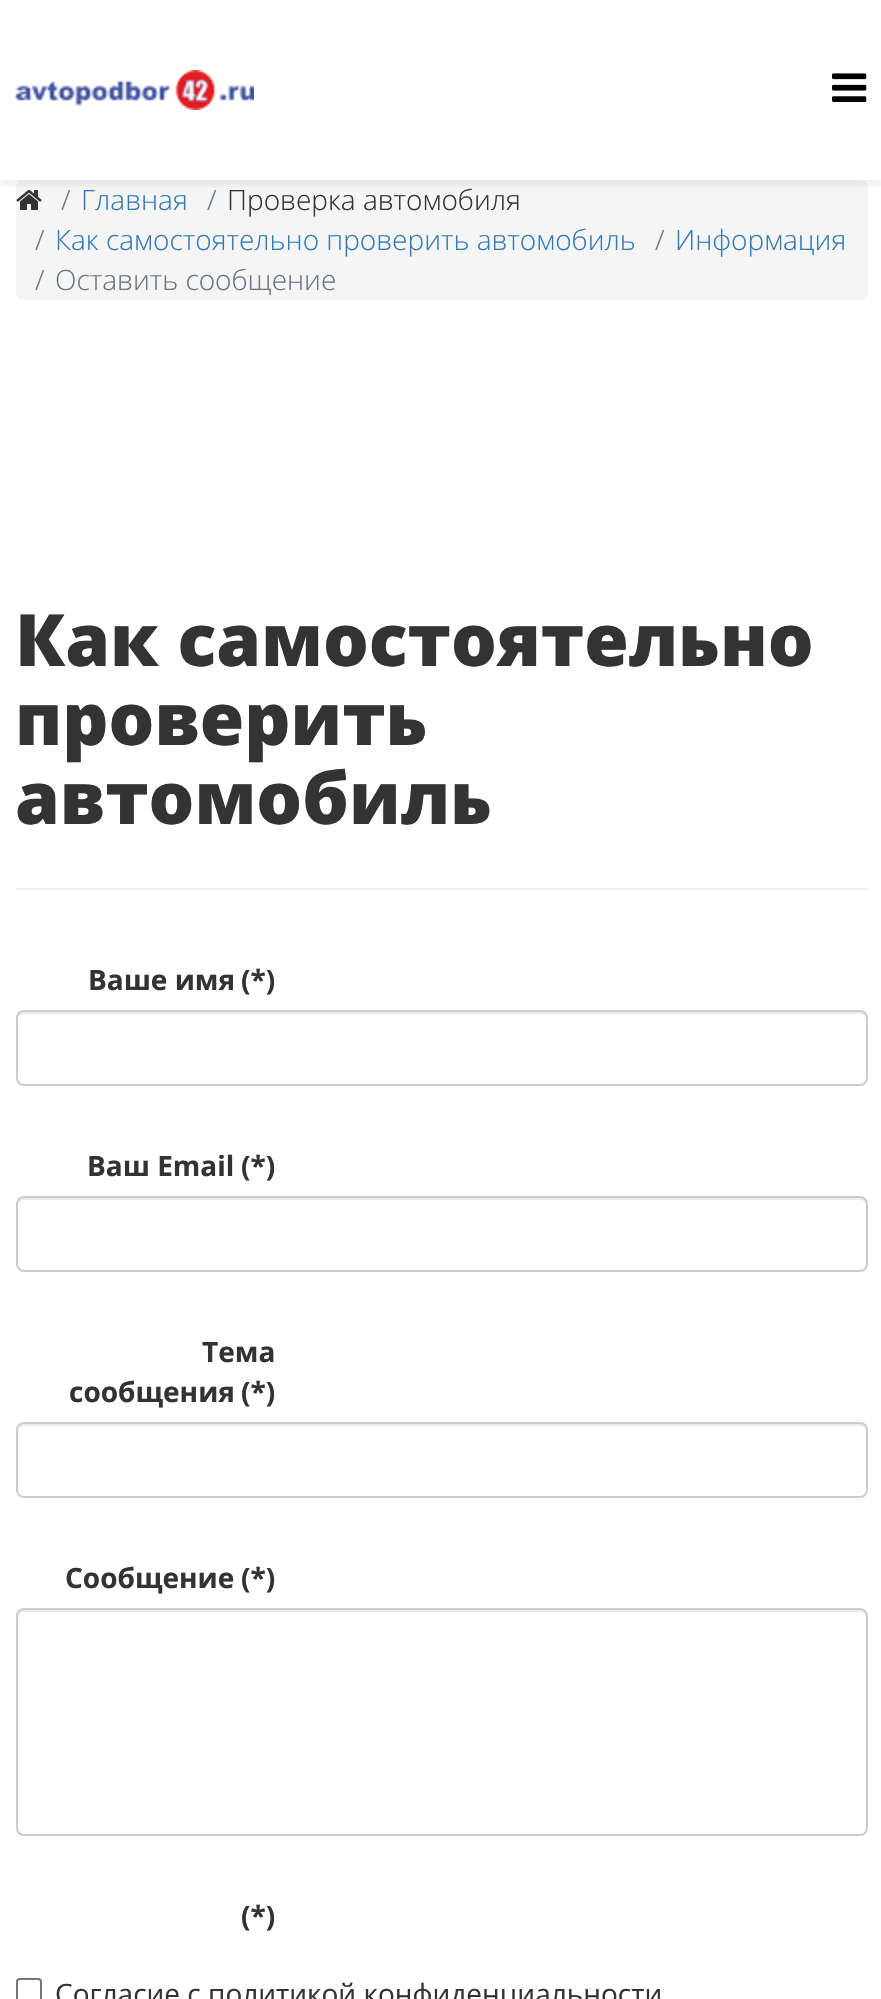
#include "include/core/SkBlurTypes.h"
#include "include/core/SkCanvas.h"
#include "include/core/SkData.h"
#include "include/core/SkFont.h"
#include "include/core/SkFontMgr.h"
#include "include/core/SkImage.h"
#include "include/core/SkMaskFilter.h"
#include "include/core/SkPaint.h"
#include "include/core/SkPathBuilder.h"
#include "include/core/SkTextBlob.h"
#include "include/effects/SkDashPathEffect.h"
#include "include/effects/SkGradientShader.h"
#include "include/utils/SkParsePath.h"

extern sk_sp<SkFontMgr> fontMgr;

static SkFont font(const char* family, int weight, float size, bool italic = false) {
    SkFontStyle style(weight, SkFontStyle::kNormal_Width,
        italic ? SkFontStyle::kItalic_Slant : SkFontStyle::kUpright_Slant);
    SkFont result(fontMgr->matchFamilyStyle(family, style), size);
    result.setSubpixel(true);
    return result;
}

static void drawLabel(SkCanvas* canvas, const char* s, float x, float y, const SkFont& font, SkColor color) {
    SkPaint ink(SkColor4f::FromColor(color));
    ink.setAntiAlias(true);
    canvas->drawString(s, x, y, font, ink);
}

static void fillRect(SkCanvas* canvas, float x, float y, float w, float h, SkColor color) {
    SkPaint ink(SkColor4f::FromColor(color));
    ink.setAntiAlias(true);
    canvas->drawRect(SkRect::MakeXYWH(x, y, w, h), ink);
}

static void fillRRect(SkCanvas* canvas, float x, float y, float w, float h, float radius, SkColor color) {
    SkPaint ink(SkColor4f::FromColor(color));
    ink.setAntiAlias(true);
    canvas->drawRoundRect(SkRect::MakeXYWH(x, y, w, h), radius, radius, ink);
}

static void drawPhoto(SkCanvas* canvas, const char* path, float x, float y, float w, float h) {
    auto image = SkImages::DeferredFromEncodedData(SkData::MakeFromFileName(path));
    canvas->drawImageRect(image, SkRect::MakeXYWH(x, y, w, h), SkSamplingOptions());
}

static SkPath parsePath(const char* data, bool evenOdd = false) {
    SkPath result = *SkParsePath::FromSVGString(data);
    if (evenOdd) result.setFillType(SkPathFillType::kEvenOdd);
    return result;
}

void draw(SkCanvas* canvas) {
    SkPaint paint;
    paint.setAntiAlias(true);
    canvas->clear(0xFFFFFFFF);
    fillRRect(canvas, 16, 180, 852, 120, 8, 0xFFF5F5F5);
    drawPhoto(canvas, "assets/img3.png", 16, 190, 26, 20);
    canvas->save();
    canvas->clipRect(SkRect::MakeXYWH(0, 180, 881, 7));
    paint.setColor(0x0D000000);
    paint.setMaskFilter(SkMaskFilter::MakeBlur(kNormal_SkBlurStyle, 3));
    canvas->drawRect(SkRect::MakeXYWH(0, 6, 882, 180), paint);
    paint.setMaskFilter(nullptr);
    canvas->restore();
    drawPhoto(canvas, "assets/img1.png", 15, 70, 239, 40);
    drawPhoto(canvas, "assets/img2.png", 832, 73, 35, 29);
    SkFont font1 = font("Open Sans", 300, 28);
    drawLabel(canvas, "/", 61, 210, font1, 0xFF6C757D);
    drawLabel(canvas, "Главная", 81, 210, font1, 0xFF337AB7);
    drawLabel(canvas, "/", 207, 210, font1, 0xFF6C757D);
    drawLabel(canvas, "Проверка автомобиля", 227, 210, font1, 0xFF333333);
    drawLabel(canvas, "/", 35, 250, font1, 0xFF6C757D);
    drawLabel(canvas, "Как самостоятельно проверить автомобиль", 55, 250, font1, 0xFF337AB7);
    drawLabel(canvas, "/", 655, 250, font1, 0xFF6C757D);
    drawLabel(canvas, "Информация", 675, 250, font1, 0xFF337AB7);
    drawLabel(canvas, "/", 35, 290, font1, 0xFF6C757D);
    drawLabel(canvas, "Оставить сообщение", 55, 290, font1, 0xFF6C757D);
    fillRect(canvas, 16, 888, 852, 2, 0xFFEEEEEE);
    SkFont font2 = font("Open Sans", 800, 72);
    drawLabel(canvas, "Как самостоятельно", 15, 666, font2, 0xFF333333);
    drawLabel(canvas, "проверить", 15, 745, font2, 0xFF333333);
    drawLabel(canvas, "автомобиль", 15, 824, font2, 0xFF333333);
    SkFont font3 = font("Open Sans", 700, 28);
    drawLabel(canvas, "Ваше имя", 88, 990, font3, 0xFF333333);
    drawLabel(canvas, "(*)", 241, 990, font3, 0xFF333333);
    paint.setColor(0xFFECECEC);
    canvas->drawPath(parsePath("M24 1014H860C863 1014 866 1017 866 1020C866 1016 865 1012 860 1012H24C19 1012 18 1016 18 1020C18 1017 21 1014 24 1014Z"), paint);
    paint.setStroke(true);
    paint.setStrokeWidth(2);
    paint.setColor(0xFFCCCCCC);
    canvas->drawRoundRect(SkRect::MakeXYWH(17, 1011, 850, 74), 7, 7, paint);
    drawLabel(canvas, "Ваш Email", 87, 1176, font3, 0xFF333333);
    drawLabel(canvas, "(*)", 241, 1176, font3, 0xFF333333);
    paint.setStroke(false);
    paint.setColor(0xFFECECEC);
    canvas->drawPath(parsePath("M24 1200H860C863 1200 866 1203 866 1206C866 1202 865 1198 860 1198H24C19 1198 18 1202 18 1206C18 1203 21 1200 24 1200Z"), paint);
    paint.setStroke(true);
    paint.setColor(0xFFCCCCCC);
    canvas->drawRoundRect(SkRect::MakeXYWH(17, 1197, 850, 74), 7, 7, paint);
    drawLabel(canvas, "Тема", 202, 1362, font3, 0xFF333333);
    drawLabel(canvas, "сообщения", 69, 1402, font3, 0xFF333333);
    drawLabel(canvas, "(*)", 241, 1402, font3, 0xFF333333);
    paint.setStroke(false);
    paint.setColor(0xFFECECEC);
    canvas->drawPath(parsePath("M24 1426H860C863 1426 866 1429 866 1432C866 1428 865 1424 860 1424H24C19 1424 18 1428 18 1432C18 1429 21 1426 24 1426Z"), paint);
    paint.setStroke(true);
    paint.setColor(0xFFCCCCCC);
    canvas->drawRoundRect(SkRect::MakeXYWH(17, 1423, 850, 74), 7, 7, paint);
    drawLabel(canvas, "Сообщение", 65, 1588, font3, 0xFF333333);
    drawLabel(canvas, "(*)", 241, 1588, font3, 0xFF333333);
    paint.setStroke(false);
    paint.setColor(0xFFECECEC);
    canvas->drawPath(parsePath("M24 1612H860C863 1612 866 1615 866 1618C866 1614 865 1610 860 1610H24C19 1610 18 1614 18 1618C18 1615 21 1612 24 1612Z"), paint);
    paint.setStroke(true);
    paint.setColor(0xFFCCCCCC);
    canvas->drawRoundRect(SkRect::MakeXYWH(17, 1609, 850, 226), 7, 7, paint);
    drawLabel(canvas, "(*)", 241, 1926, font3, 0xFF333333);
    paint.setColor(0xFF767676);
    canvas->drawRoundRect(SkRect::MakeXYWH(17, 1979, 24, 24), 3, 3, paint);
    SkFont font4 = font("Open Sans", 400, 28);
    drawLabel(canvas, "Согласие с политикой конфиденциальности", 55, 2004, font4, 0xFF333333);
}
